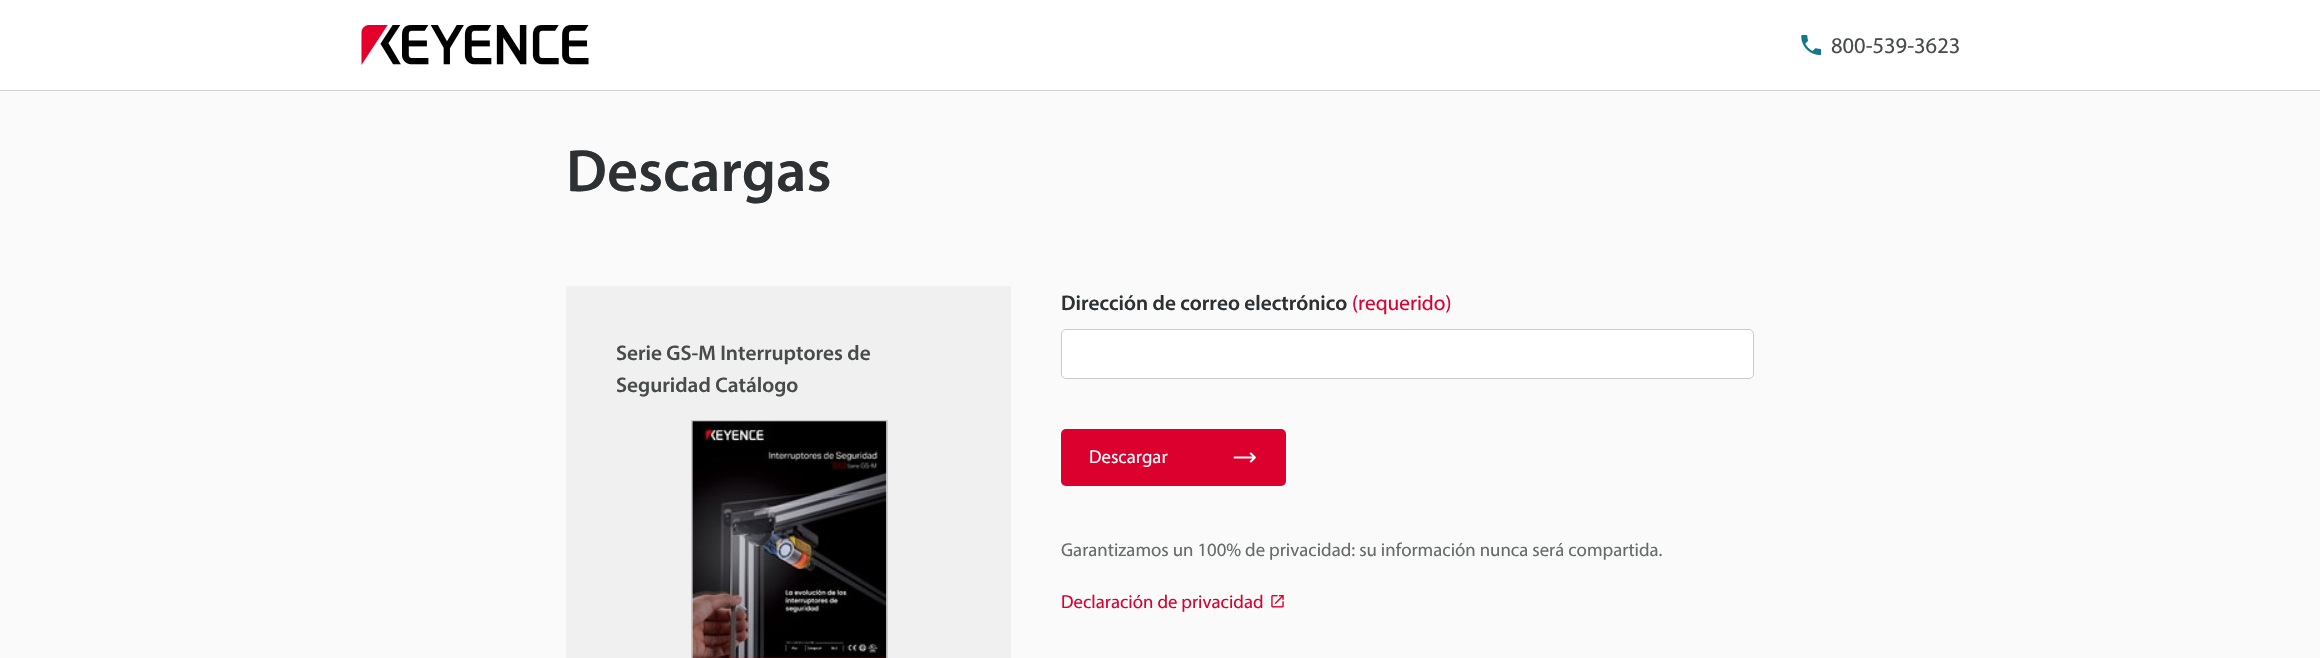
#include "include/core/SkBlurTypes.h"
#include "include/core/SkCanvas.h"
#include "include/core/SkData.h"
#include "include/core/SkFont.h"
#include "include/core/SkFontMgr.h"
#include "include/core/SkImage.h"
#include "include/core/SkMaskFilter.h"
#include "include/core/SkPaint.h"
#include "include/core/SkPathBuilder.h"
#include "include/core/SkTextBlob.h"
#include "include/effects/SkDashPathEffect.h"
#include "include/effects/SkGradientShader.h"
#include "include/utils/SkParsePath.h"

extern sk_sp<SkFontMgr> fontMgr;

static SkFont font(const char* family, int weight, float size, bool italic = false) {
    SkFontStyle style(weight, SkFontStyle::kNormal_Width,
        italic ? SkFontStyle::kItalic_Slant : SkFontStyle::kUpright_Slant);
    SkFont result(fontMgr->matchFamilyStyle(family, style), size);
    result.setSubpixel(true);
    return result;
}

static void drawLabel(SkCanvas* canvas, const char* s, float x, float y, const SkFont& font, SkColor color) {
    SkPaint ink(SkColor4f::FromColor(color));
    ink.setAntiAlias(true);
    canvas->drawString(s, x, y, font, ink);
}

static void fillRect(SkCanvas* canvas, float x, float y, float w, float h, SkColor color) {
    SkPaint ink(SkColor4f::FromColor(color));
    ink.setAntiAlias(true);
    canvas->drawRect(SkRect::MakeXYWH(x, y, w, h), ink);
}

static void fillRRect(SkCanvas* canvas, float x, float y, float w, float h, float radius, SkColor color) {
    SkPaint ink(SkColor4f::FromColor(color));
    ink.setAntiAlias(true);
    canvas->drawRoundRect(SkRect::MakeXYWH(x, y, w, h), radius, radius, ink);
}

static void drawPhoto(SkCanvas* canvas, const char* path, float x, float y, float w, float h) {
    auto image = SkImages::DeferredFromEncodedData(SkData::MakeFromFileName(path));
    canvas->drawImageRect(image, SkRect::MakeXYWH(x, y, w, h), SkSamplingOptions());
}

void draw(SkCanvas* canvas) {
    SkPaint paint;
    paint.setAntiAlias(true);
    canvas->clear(0xFFFAFAFA);
    fillRect(canvas, 0, 0, 2320, 90, 0xFFFFFFFF);
    fillRect(canvas, 0, 90, 2320, 1, 0xFFD0D0D0);
    drawPhoto(canvas, "assets/img1.png", 361, 25, 228, 40);
    drawPhoto(canvas, "assets/img2.png", 1801, 35, 20, 20);
    SkFont font1 = font("Myriad", 400, 22.5f);
    drawLabel(canvas, "800-539-3623", 1831, 53, font1, 0xFF484B4C);
    SkFont font2 = font("Myriad", 600, 60);
    drawLabel(canvas, "Descargas", 566, 191, font2, 0xFF2E3133);
    fillRect(canvas, 566, 286, 445, 372, 0xFFF0F0F0);
    SkFont font3 = font("Myriad", 600, 21.25f);
    drawLabel(canvas, "Serie GS-M Interruptores de", 616, 360, font3, 0xFF484B4C);
    drawLabel(canvas, "Seguridad Catálogo", 616, 392, font3, 0xFF484B4C);
    paint.setStroke(true);
    paint.setStrokeWidth(1);
    paint.setColor(0xFFC9CBCB);
    canvas->drawRect(SkRect::MakeXYWH(691.5f, 420.5f, 196, 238), paint);
    drawPhoto(canvas, "assets/img3.png", 692, 421, 195, 237);
    drawLabel(canvas, "Dirección de correo electrónico", 1061, 310, font3, 0xFF2E3133);
    SkFont font4 = font("Myriad", 400, 21.25f);
    drawLabel(canvas, "(requerido)", 1352, 310, font4, 0xFFDC002F);
    paint.setStroke(false);
    paint.setColor(0xFFFFFFFF);
    canvas->drawRoundRect(SkRect::MakeXYWH(1061.5f, 329.5f, 692, 49), 4.5f, 4.5f, paint);
    paint.setStroke(true);
    paint.setColor(0xFFC9CBCB);
    canvas->drawRoundRect(SkRect::MakeXYWH(1061.5f, 329.5f, 692, 49), 4.5f, 4.5f, paint);
    fillRRect(canvas, 1061, 429, 225, 57, 5, 0xFFDC002F);
    SkFont font5 = font("Myriad", 400, 18.75f);
    drawLabel(canvas, "Descargar", 1089, 463, font5, 0xFFFFFFFF);
    drawPhoto(canvas, "assets/img4.png", 1233, 452, 24, 11);
    drawLabel(canvas, "Garantizamos un 100% de privacidad: su información nunca será compartida.", 1061, 556, font5, 0xFF666A6B);
    drawLabel(canvas, "Declaración de privacidad", 1061, 608, font5, 0xFFDC002F);
    drawPhoto(canvas, "assets/img5.png", 1271, 595, 13, 13);
}
